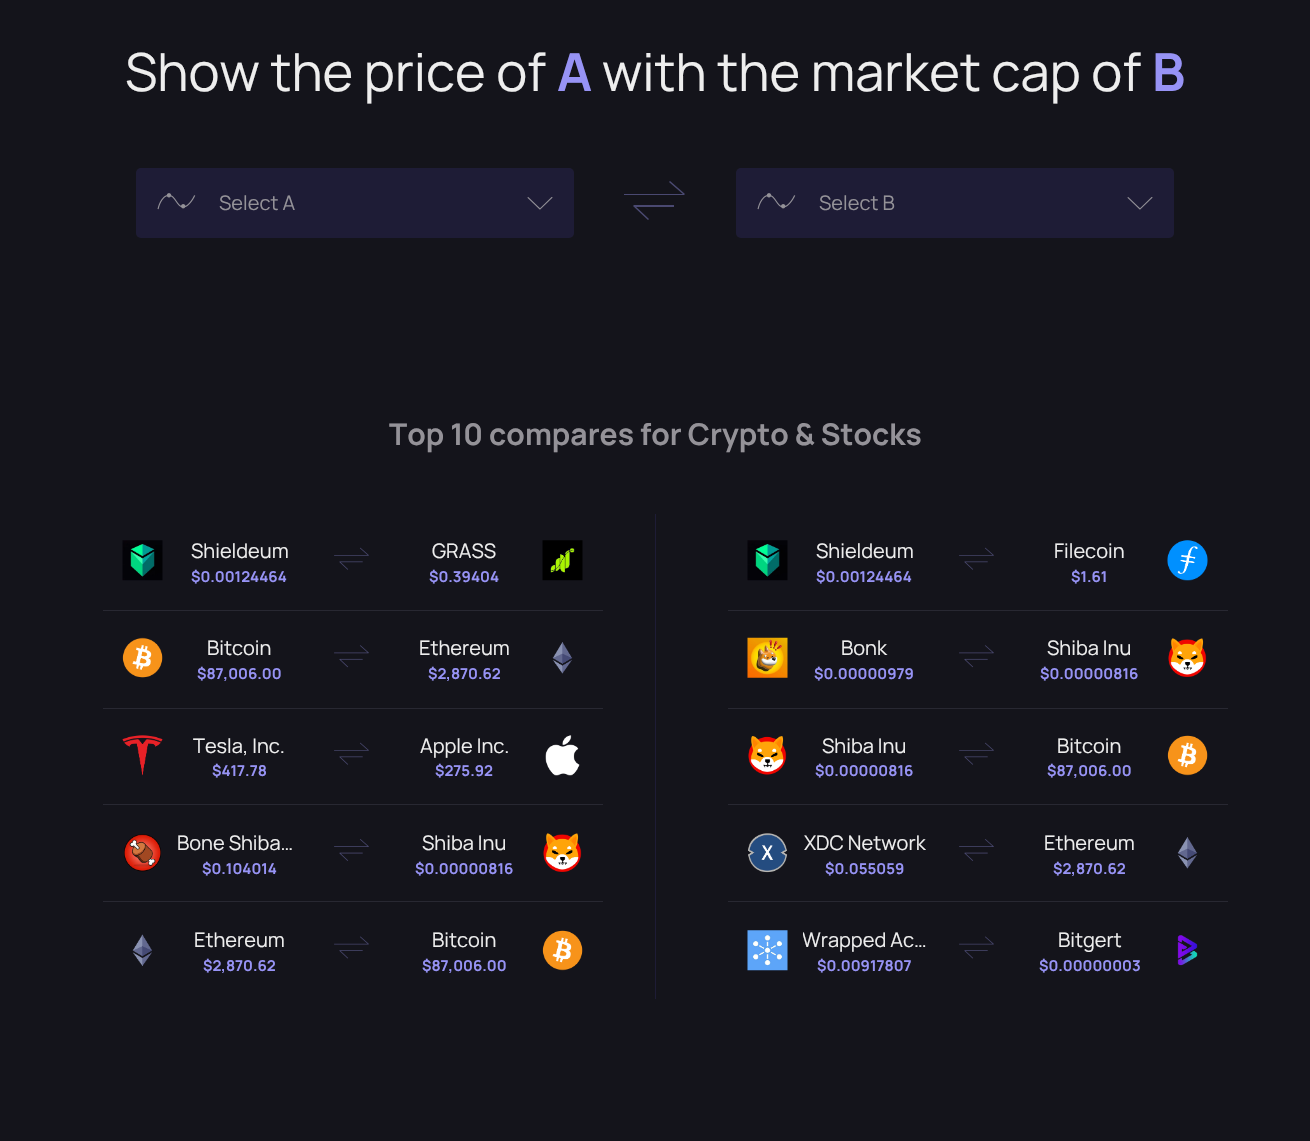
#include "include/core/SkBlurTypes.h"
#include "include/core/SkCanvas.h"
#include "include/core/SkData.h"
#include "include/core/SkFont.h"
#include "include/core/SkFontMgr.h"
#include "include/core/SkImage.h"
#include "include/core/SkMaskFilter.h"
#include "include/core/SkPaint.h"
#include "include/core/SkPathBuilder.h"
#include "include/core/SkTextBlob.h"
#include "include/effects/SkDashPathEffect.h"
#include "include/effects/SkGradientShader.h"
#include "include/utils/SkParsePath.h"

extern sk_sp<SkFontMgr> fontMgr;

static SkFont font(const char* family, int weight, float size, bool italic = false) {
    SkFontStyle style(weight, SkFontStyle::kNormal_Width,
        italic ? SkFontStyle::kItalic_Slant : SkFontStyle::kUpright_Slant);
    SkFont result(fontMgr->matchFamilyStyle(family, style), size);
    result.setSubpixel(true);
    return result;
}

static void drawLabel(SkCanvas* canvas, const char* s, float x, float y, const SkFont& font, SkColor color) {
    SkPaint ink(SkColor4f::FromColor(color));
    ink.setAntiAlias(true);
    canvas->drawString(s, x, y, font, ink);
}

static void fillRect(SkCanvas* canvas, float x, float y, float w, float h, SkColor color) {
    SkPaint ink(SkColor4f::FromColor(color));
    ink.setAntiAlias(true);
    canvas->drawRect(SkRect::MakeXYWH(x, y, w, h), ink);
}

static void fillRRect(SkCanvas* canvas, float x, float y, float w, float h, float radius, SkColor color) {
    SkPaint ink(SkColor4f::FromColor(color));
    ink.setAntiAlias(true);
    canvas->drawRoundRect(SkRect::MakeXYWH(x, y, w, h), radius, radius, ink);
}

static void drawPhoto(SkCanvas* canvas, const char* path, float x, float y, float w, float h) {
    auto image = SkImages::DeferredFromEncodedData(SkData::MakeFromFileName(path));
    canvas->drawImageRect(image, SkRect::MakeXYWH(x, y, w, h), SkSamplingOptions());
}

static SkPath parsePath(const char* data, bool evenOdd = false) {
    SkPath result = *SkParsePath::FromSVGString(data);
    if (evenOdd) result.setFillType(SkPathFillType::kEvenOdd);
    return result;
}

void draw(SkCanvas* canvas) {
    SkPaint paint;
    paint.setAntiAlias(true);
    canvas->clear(0xFF14141B);
    SkFont font1 = font("Manrope", 200, 52.5f);
    drawLabel(canvas, "Show the price of", 125, 91, font1, 0xFFEEEEEE);
    SkFont font2 = font("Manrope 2", 200, 52.5f);
    drawLabel(canvas, "A", 557, 91, font2, 0xFF9793F5);
    drawLabel(canvas, "with the market cap of", 602, 91, font1, 0xFFEEEEEE);
    drawLabel(canvas, "B", 1152, 91, font2, 0xFF9793F5);
    fillRRect(canvas, 136, 168, 438, 70, 5, 0xFF1E1C36);
    drawPhoto(canvas, "assets/img1.png", 157, 193, 39, 17);
    SkFont font3 = font("Manrope", 200, 20);
    drawLabel(canvas, "Select A", 219, 210, font3, 0xFF949298);
    drawPhoto(canvas, "assets/img2.png", 527, 197, 26, 13);
    paint.setColor(0xFF4A4971);
    canvas->drawPath(parsePath("M624 194H684V195H624ZM669 182L670 181L685 194L684 195ZM634 205H674V207H634ZM633 206L634 205L649 219L648 220Z"), paint);
    fillRRect(canvas, 736, 168, 438, 70, 5, 0xFF1E1C36);
    drawPhoto(canvas, "assets/img1.png", 757, 193, 39, 17);
    drawLabel(canvas, "Select B", 819, 210, font3, 0xFF949298);
    drawPhoto(canvas, "assets/img2.png", 1127, 197, 26, 13);
    SkFont font4 = font("Manrope 2", 200, 30);
    drawLabel(canvas, "Top 10 compares for Crypto & Stocks", 389, 445, font4, 0xFF949298);
    fillRect(canvas, 103, 610, 500, 1, 0xFF282832);
    drawPhoto(canvas, "assets/img3.png", 122, 540, 41, 41);
    drawLabel(canvas, "Shieldeum", 191, 558, font3, 0xFFEEEEEE);
    SkFont font5 = font("Manrope 2", 200, 15);
    drawLabel(canvas, "$0.00124464", 191, 582, font5, 0xFF9793F5);
    drawPhoto(canvas, "assets/img4.png", 334, 547, 35, 23);
    drawLabel(canvas, "GRASS", 432, 558, font3, 0xFFEEEEEE);
    drawLabel(canvas, "$0.39404", 429, 582, font5, 0xFF9793F5);
    drawPhoto(canvas, "assets/img5.png", 542, 540, 41, 41);
    fillRect(canvas, 103, 708, 500, 1, 0xFF282832);
    drawPhoto(canvas, "assets/img6.png", 122, 637, 41, 41);
    drawLabel(canvas, "Bitcoin", 207, 655, font3, 0xFFEEEEEE);
    drawLabel(canvas, "$87,006.00", 197, 679, font5, 0xFF9793F5);
    drawPhoto(canvas, "assets/img7.png", 334, 645, 35, 23);
    drawLabel(canvas, "Ethereum", 419, 655, font3, 0xFFEEEEEE);
    drawLabel(canvas, "$2,870.62", 428, 679, font5, 0xFF9793F5);
    drawPhoto(canvas, "assets/img8.png", 552, 642, 21, 32);
    fillRect(canvas, 103, 804, 500, 1, 0xFF282832);
    drawPhoto(canvas, "assets/img9.png", 122, 735, 41, 41);
    drawLabel(canvas, "Tesla, Inc.", 193, 753, font3, 0xFFEEEEEE);
    drawLabel(canvas, "$417.78", 212, 776, font5, 0xFF9793F5);
    drawPhoto(canvas, "assets/img4.png", 334, 742, 35, 23);
    drawLabel(canvas, "Apple Inc.", 420, 753, font3, 0xFFEEEEEE);
    drawLabel(canvas, "$275.92", 435, 776, font5, 0xFF9793F5);
    drawPhoto(canvas, "assets/img10.png", 545, 735, 35, 41);
    fillRect(canvas, 103, 901, 500, 1, 0xFF282832);
    drawPhoto(canvas, "assets/img11.png", 124, 834, 37, 38);
    drawLabel(canvas, "Bone Shiba…", 177, 850, font3, 0xFFEEEEEE);
    drawLabel(canvas, "$0.104014", 202, 874, font5, 0xFF9793F5);
    drawPhoto(canvas, "assets/img12.png", 334, 839, 35, 22);
    drawLabel(canvas, "Shiba Inu", 422, 850, font3, 0xFFEEEEEE);
    drawLabel(canvas, "$0.00000816", 415, 874, font5, 0xFF9793F5);
    drawPhoto(canvas, "assets/img13.png", 543, 833, 39, 39);
    drawPhoto(canvas, "assets/img14.png", 132, 934, 20, 32);
    drawLabel(canvas, "Ethereum", 194, 947, font3, 0xFFEEEEEE);
    drawLabel(canvas, "$2,870.62", 203, 971, font5, 0xFF9793F5);
    drawPhoto(canvas, "assets/img15.png", 334, 936, 35, 23);
    drawLabel(canvas, "Bitcoin", 432, 947, font3, 0xFFEEEEEE);
    drawLabel(canvas, "$87,006.00", 422, 971, font5, 0xFF9793F5);
    drawPhoto(canvas, "assets/img16.png", 542, 930, 41, 41);
    fillRect(canvas, 655, 514, 1, 485, 0xFF1E1C36);
    fillRect(canvas, 728, 610, 500, 1, 0xFF282832);
    drawPhoto(canvas, "assets/img3.png", 747, 540, 41, 41);
    drawLabel(canvas, "Shieldeum", 816, 558, font3, 0xFFEEEEEE);
    drawLabel(canvas, "$0.00124464", 816, 582, font5, 0xFF9793F5);
    drawPhoto(canvas, "assets/img4.png", 959, 547, 35, 23);
    drawLabel(canvas, "Filecoin", 1054, 558, font3, 0xFFEEEEEE);
    drawLabel(canvas, "$1.61", 1071, 582, font5, 0xFF9793F5);
    drawPhoto(canvas, "assets/img17.png", 1167, 540, 41, 41);
    fillRect(canvas, 728, 708, 500, 1, 0xFF282832);
    drawPhoto(canvas, "assets/img18.png", 747, 637, 41, 41);
    drawLabel(canvas, "Bonk", 841, 655, font3, 0xFFEEEEEE);
    drawLabel(canvas, "$0.00000979", 814, 679, font5, 0xFF9793F5);
    drawPhoto(canvas, "assets/img7.png", 959, 645, 35, 23);
    drawLabel(canvas, "Shiba Inu", 1047, 655, font3, 0xFFEEEEEE);
    drawLabel(canvas, "$0.00000816", 1040, 679, font5, 0xFF9793F5);
    drawPhoto(canvas, "assets/img19.png", 1168, 638, 39, 39);
    fillRect(canvas, 728, 804, 500, 1, 0xFF282832);
    drawPhoto(canvas, "assets/img20.png", 748, 736, 39, 39);
    drawLabel(canvas, "Shiba Inu", 822, 753, font3, 0xFFEEEEEE);
    drawLabel(canvas, "$0.00000816", 815, 776, font5, 0xFF9793F5);
    drawPhoto(canvas, "assets/img4.png", 959, 742, 35, 23);
    drawLabel(canvas, "Bitcoin", 1057, 753, font3, 0xFFEEEEEE);
    drawLabel(canvas, "$87,006.00", 1047, 776, font5, 0xFF9793F5);
    drawPhoto(canvas, "assets/img21.png", 1167, 735, 41, 41);
    fillRect(canvas, 728, 901, 500, 1, 0xFF282832);
    drawPhoto(canvas, "assets/img22.png", 748, 833, 40, 40);
    drawLabel(canvas, "XDC Network", 804, 850, font3, 0xFFEEEEEE);
    drawLabel(canvas, "$0.055059", 825, 874, font5, 0xFF9793F5);
    drawPhoto(canvas, "assets/img12.png", 959, 839, 35, 22);
    drawLabel(canvas, "Ethereum", 1044, 850, font3, 0xFFEEEEEE);
    drawLabel(canvas, "$2,870.62", 1053, 874, font5, 0xFF9793F5);
    drawPhoto(canvas, "assets/img23.png", 1177, 837, 21, 32);
    drawPhoto(canvas, "assets/img24.png", 747, 930, 41, 41);
    canvas->save();
    canvas->clipRect(SkRect::MakeXYWH(803, 925, 125, 30));
    drawLabel(canvas, "Wrapped Ac…", 802, 947, font3, 0xFFEEEEEE);
    canvas->restore();
    drawLabel(canvas, "$0.00917807", 817, 971, font5, 0xFF9793F5);
    drawPhoto(canvas, "assets/img15.png", 959, 936, 35, 23);
    drawLabel(canvas, "Bitgert", 1058, 947, font3, 0xFFEEEEEE);
    drawLabel(canvas, "$0.00000003", 1039, 971, font5, 0xFF9793F5);
    drawPhoto(canvas, "assets/img25.png", 1177, 935, 21, 31);
}
